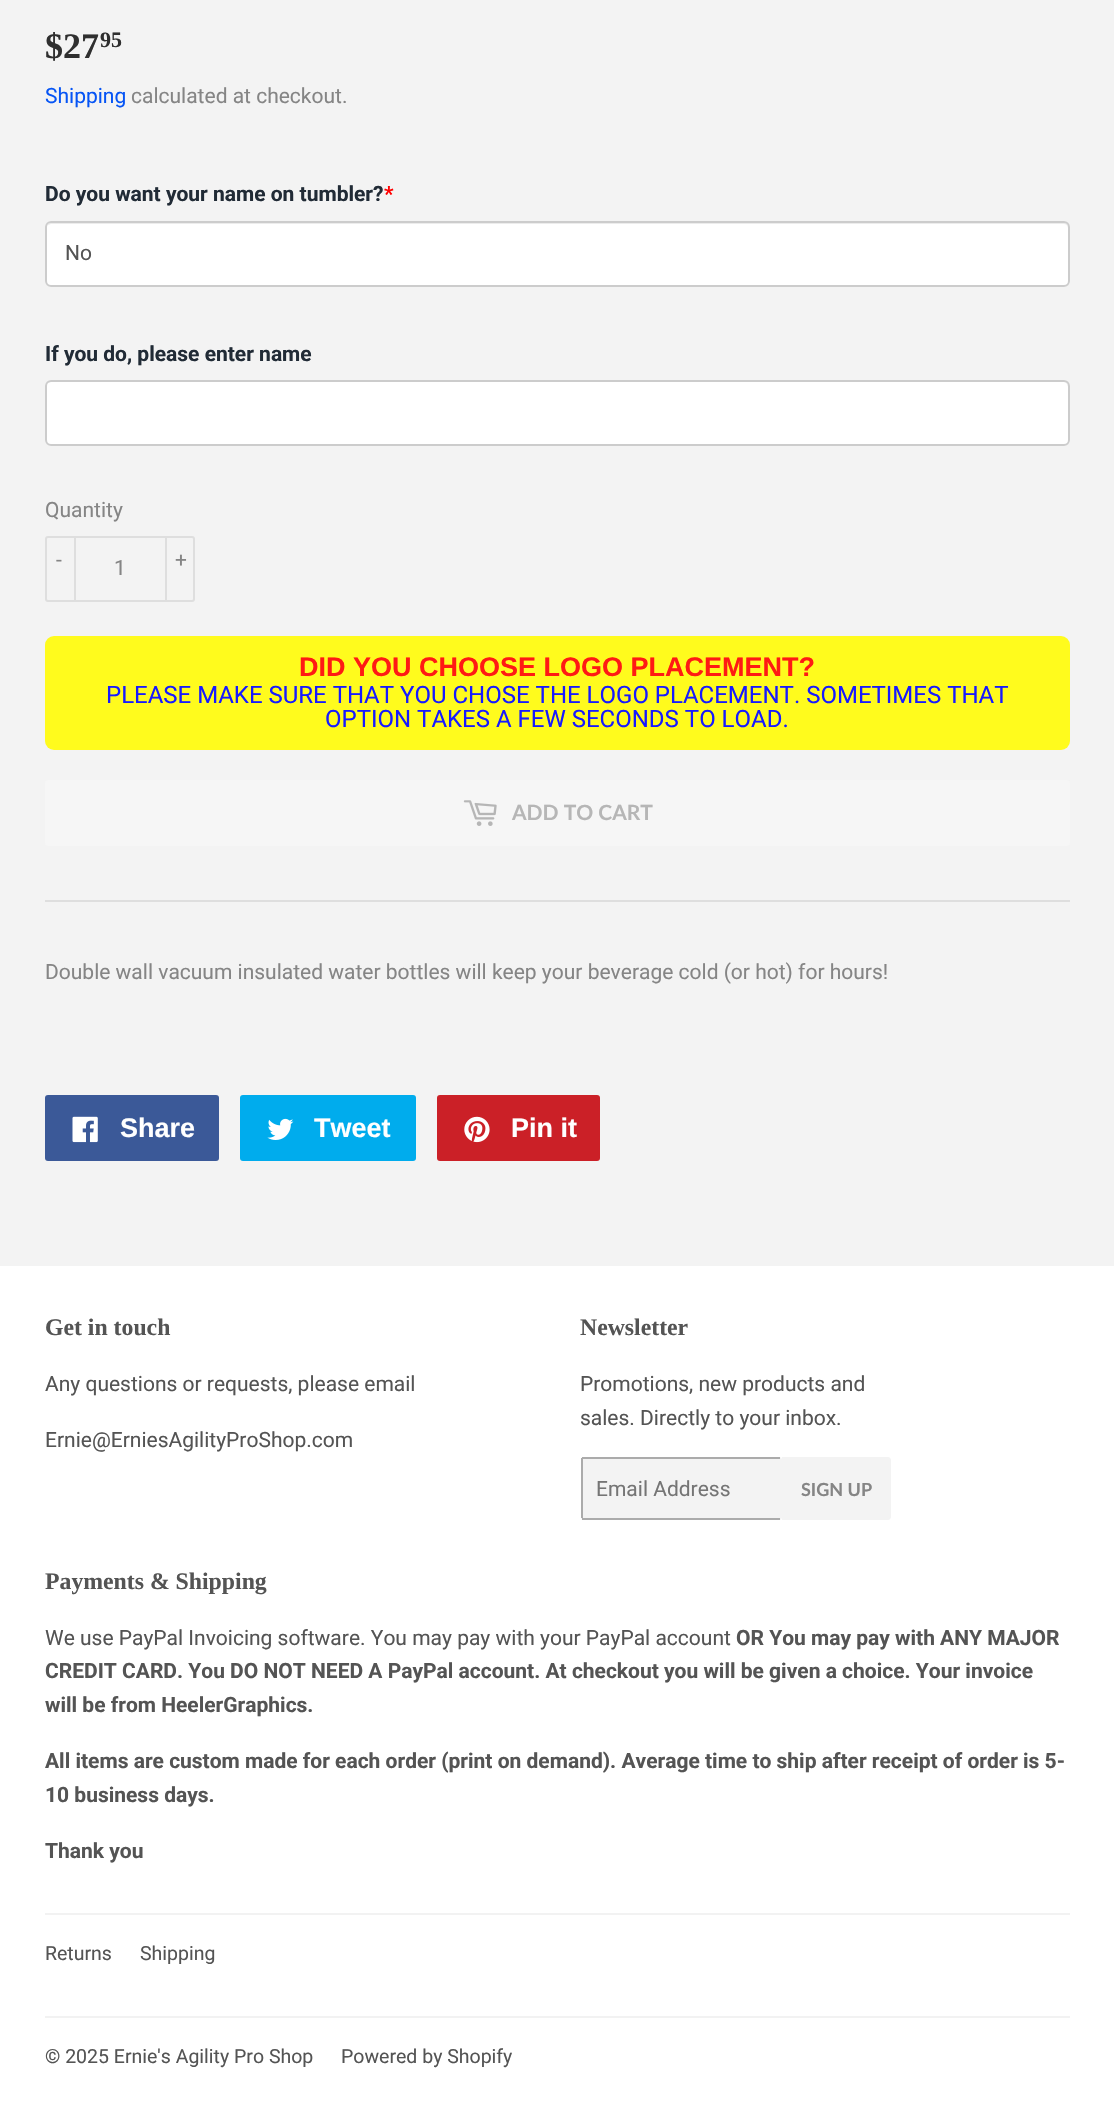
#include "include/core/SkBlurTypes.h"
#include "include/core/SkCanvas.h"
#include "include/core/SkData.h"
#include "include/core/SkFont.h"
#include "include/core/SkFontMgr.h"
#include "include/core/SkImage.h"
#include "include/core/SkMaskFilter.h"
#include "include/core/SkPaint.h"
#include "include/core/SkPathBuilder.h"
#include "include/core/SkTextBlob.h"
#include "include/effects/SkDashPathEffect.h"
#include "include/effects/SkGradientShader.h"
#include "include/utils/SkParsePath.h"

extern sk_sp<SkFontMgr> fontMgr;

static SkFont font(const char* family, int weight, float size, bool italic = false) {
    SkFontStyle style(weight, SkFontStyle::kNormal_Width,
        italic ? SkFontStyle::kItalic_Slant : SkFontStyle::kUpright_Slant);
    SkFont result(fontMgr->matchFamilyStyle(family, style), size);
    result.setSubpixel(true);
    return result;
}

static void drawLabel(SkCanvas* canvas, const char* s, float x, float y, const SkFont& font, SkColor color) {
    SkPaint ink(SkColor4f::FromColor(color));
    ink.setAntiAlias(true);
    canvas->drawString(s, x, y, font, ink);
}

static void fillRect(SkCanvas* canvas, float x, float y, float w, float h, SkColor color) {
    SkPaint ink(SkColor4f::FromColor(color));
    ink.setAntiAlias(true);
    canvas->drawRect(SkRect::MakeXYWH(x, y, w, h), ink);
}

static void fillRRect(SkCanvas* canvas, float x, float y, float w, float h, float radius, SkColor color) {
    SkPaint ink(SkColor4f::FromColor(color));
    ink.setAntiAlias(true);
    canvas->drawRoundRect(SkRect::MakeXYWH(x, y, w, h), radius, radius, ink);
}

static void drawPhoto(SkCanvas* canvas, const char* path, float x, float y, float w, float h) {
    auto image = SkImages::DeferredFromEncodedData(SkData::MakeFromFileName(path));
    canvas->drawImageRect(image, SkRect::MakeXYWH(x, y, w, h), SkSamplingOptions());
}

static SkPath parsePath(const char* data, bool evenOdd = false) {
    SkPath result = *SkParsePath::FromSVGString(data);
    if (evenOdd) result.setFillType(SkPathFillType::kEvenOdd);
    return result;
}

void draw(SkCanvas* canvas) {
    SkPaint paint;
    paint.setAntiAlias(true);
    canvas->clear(0xFFF3F3F3);
    SkFont font1 = font("Liberation Serif", 700, 36);
    drawLabel(canvas, "$27", 45, 58, font1, 0xFF2F2F2F);
    SkFont font2 = font("Liberation Serif", 700, 22);
    drawLabel(canvas, "95", 100, 47, font2, 0xFF2F2F2F);
    SkFont font3 = font("Roboto", 400, 21);
    drawLabel(canvas, "Shipping", 45, 103, font3, 0xFF0554F5);
    drawLabel(canvas, "calculated at checkout.", 131, 103, font3, 0xFF858585);
    SkFont font4 = font("Roboto", 700, 21);
    drawLabel(canvas, "Do you want your name on tumbler?", 45, 201, font4, 0xFF212B36);
    drawLabel(canvas, "*", 384, 201, font4, 0xFFFF0000);
    fillRRect(canvas, 45, 221, 1025, 66, 6, 0xFFFFFFFF);
    paint.setColor(0xFFECECEC);
    canvas->drawPath(parsePath("M51 224H1064C1066 224 1068 226 1068 228V227C1068 224 1066 222 1063 222H52C50 222 48 224 47 226C48 225 50 224 51 224Z"), paint);
    paint.setStroke(true);
    paint.setStrokeWidth(2);
    paint.setColor(0xFFCCCCCC);
    canvas->drawRoundRect(SkRect::MakeXYWH(46, 222, 1023, 64), 5, 5, paint);
    drawLabel(canvas, "No", 65, 260, font3, 0xFF545454);
    drawLabel(canvas, "If you do, please enter name", 45, 361, font4, 0xFF212B36);
    fillRRect(canvas, 45, 380, 1025, 66, 6, 0xFFFFFFFF);
    paint.setStroke(false);
    paint.setColor(0xFFECECEC);
    canvas->drawPath(parsePath("M51 382H1064C1066 382 1068 385 1068 387V386C1068 383 1066 381 1063 381H52C50 381 48 382 47 384C48 383 50 382 51 382Z"), paint);
    paint.setStroke(true);
    paint.setColor(0xFFCCCCCC);
    canvas->drawRoundRect(SkRect::MakeXYWH(46, 381, 1023, 64), 5, 5, paint);
    drawLabel(canvas, "Quantity", 45, 517, font3, 0xFF858585);
    paint.setColor(0xFFDEDEDE);
    canvas->drawRoundRect(SkRect::MakeXYWH(46, 537, 148, 64), 2, 2, paint);
    fillRect(canvas, 74, 536, 2, 66, 0xFFDEDEDE);
    drawLabel(canvas, "-", 56, 567, font3, 0xFF858585);
    drawLabel(canvas, "1", 114, 575, font3, 0xFF858585);
    fillRect(canvas, 165, 536, 2, 66, 0xFFDEDEDE);
    drawLabel(canvas, "+", 175, 567, font3, 0xFF858585);
    fillRRect(canvas, 45, 636, 1025, 114, 9, 0xFFFFFB1D);
    SkFont font5 = font("Liberation Sans", 700, 27);
    drawLabel(canvas, "DID YOU CHOOSE LOGO PLACEMENT?", 299, 676, font5, 0xFFFF1A14);
    SkFont font6 = font("Roboto", 400, 24);
    drawLabel(canvas, "PLEASE MAKE SURE THAT YOU CHOSE THE LOGO PLACEMENT. SOMETIMES THAT", 106, 703, font6, 0xFF171AFF);
    drawLabel(canvas, "OPTION TAKES A FEW SECONDS TO LOAD.", 325, 727, font6, 0xFF171AFF);
    fillRRect(canvas, 45, 780, 1025, 66, 3, 0xFFF6F6F6);
    drawPhoto(canvas, "assets/img1.png", 463, 800, 34, 26);
    SkFont font7 = font("Lato", 700, 21);
    drawLabel(canvas, "ADD TO CART", 512, 820, font7, 0xFFB6B6B6);
    fillRect(canvas, 45, 900, 1025, 2, 0xFFDEDEDE);
    drawLabel(canvas, "Double wall vacuum insulated water bottles will keep your beverage cold (or hot) for hours!", 45, 979, font3, 0xFF858585);
    fillRRect(canvas, 45, 1095, 174, 66, 3, 0xFF3B5998);
    drawPhoto(canvas, "assets/img2.png", 72, 1116, 26, 27);
    drawLabel(canvas, "Share", 120, 1137, font5, 0xFFFFFFFF);
    fillRRect(canvas, 240, 1095, 176, 66, 3, 0xFF00ACED);
    drawPhoto(canvas, "assets/img3.png", 267, 1118, 27, 22);
    drawLabel(canvas, "Tweet", 314, 1137, font5, 0xFFFFFFFF);
    fillRRect(canvas, 437, 1095, 163, 66, 3, 0xFFCB2027);
    drawPhoto(canvas, "assets/img4.png", 464, 1116, 26, 27);
    drawLabel(canvas, "Pin it", 511, 1137, font5, 0xFFFFFFFF);
    fillRect(canvas, 0, 1266, 1114, 844, 0xFFFFFFFF);
    SkFont font8 = font("Liberation Serif", 700, 23.75f);
    drawLabel(canvas, "Get in touch", 45, 1335, font8, 0xFF545454);
    drawLabel(canvas, "Any questions or requests, please email", 45, 1391, font3, 0xFF545454);
    drawLabel(canvas, "Ernie@ErniesAgilityProShop.com", 45, 1447, font3, 0xFF545454);
    drawLabel(canvas, "Newsletter", 580, 1335, font8, 0xFF545454);
    drawLabel(canvas, "Promotions, new products and", 580, 1391, font3, 0xFF545454);
    drawLabel(canvas, "sales. Directly to your inbox.", 580, 1425, font3, 0xFF545454);
    fillRRect(canvas, 581, 1457, 201, 63, 3, 0xFFF3F3F3);
    fillRect(canvas, 582, 1457, 198, 2, 0xFFABABAB);
    fillRect(canvas, 582, 1518, 198, 2, 0xFFABABAB);
    fillRect(canvas, 581, 1458, 2, 60, 0xFFABABAB);
    drawLabel(canvas, "Email Address", 596, 1496, font3, 0xFF757575);
    paint.setStroke(false);
    paint.setColor(0xFFF3F3F3);
    canvas->drawPath(parsePath("M782 1457H888C889.5 1457 891 1458.5 891 1460V1517C891 1518.5 889.5 1520 888 1520H782Z"), paint);
    SkFont font9 = font("Lato", 700, 18);
    drawLabel(canvas, "SIGN UP", 801, 1496, font9, 0xFF858585);
    drawLabel(canvas, "Payments & Shipping", 45, 1589, font8, 0xFF545454);
    drawLabel(canvas, "We use PayPal Invoicing software. You may pay with your PayPal account", 45, 1645, font3, 0xFF545454);
    drawLabel(canvas, "OR You may pay with ANY MAJOR", 736, 1645, font4, 0xFF545454);
    drawLabel(canvas, "CREDIT CARD. You DO NOT NEED A PayPal account. At checkout you will be given a choice. Your invoice", 45, 1678, font4, 0xFF545454);
    drawLabel(canvas, "will be from HeelerGraphics.", 45, 1712, font4, 0xFF545454);
    drawLabel(canvas, "All items are custom made for each order (print on demand). Average time to ship after receipt of order is 5-", 45, 1768, font4, 0xFF545454);
    drawLabel(canvas, "10 business days.", 45, 1802, font4, 0xFF545454);
    drawLabel(canvas, "Thank you", 45, 1858, font4, 0xFF545454);
    fillRect(canvas, 45, 1913, 1025, 2, 0xFFF2F2F2);
    SkFont font10 = font("Roboto", 400, 19.5f);
    drawLabel(canvas, "Returns", 45, 1960, font10, 0xFF545454);
    drawLabel(canvas, "Shipping", 140, 1960, font10, 0xFF545454);
    fillRect(canvas, 45, 2016, 1025, 2, 0xFFF2F2F2);
    drawLabel(canvas, "© 2025 Ernie's Agility Pro Shop", 45, 2063, font10, 0xFF545454);
    drawLabel(canvas, "Powered by Shopify", 341, 2063, font10, 0xFF545454);
}
